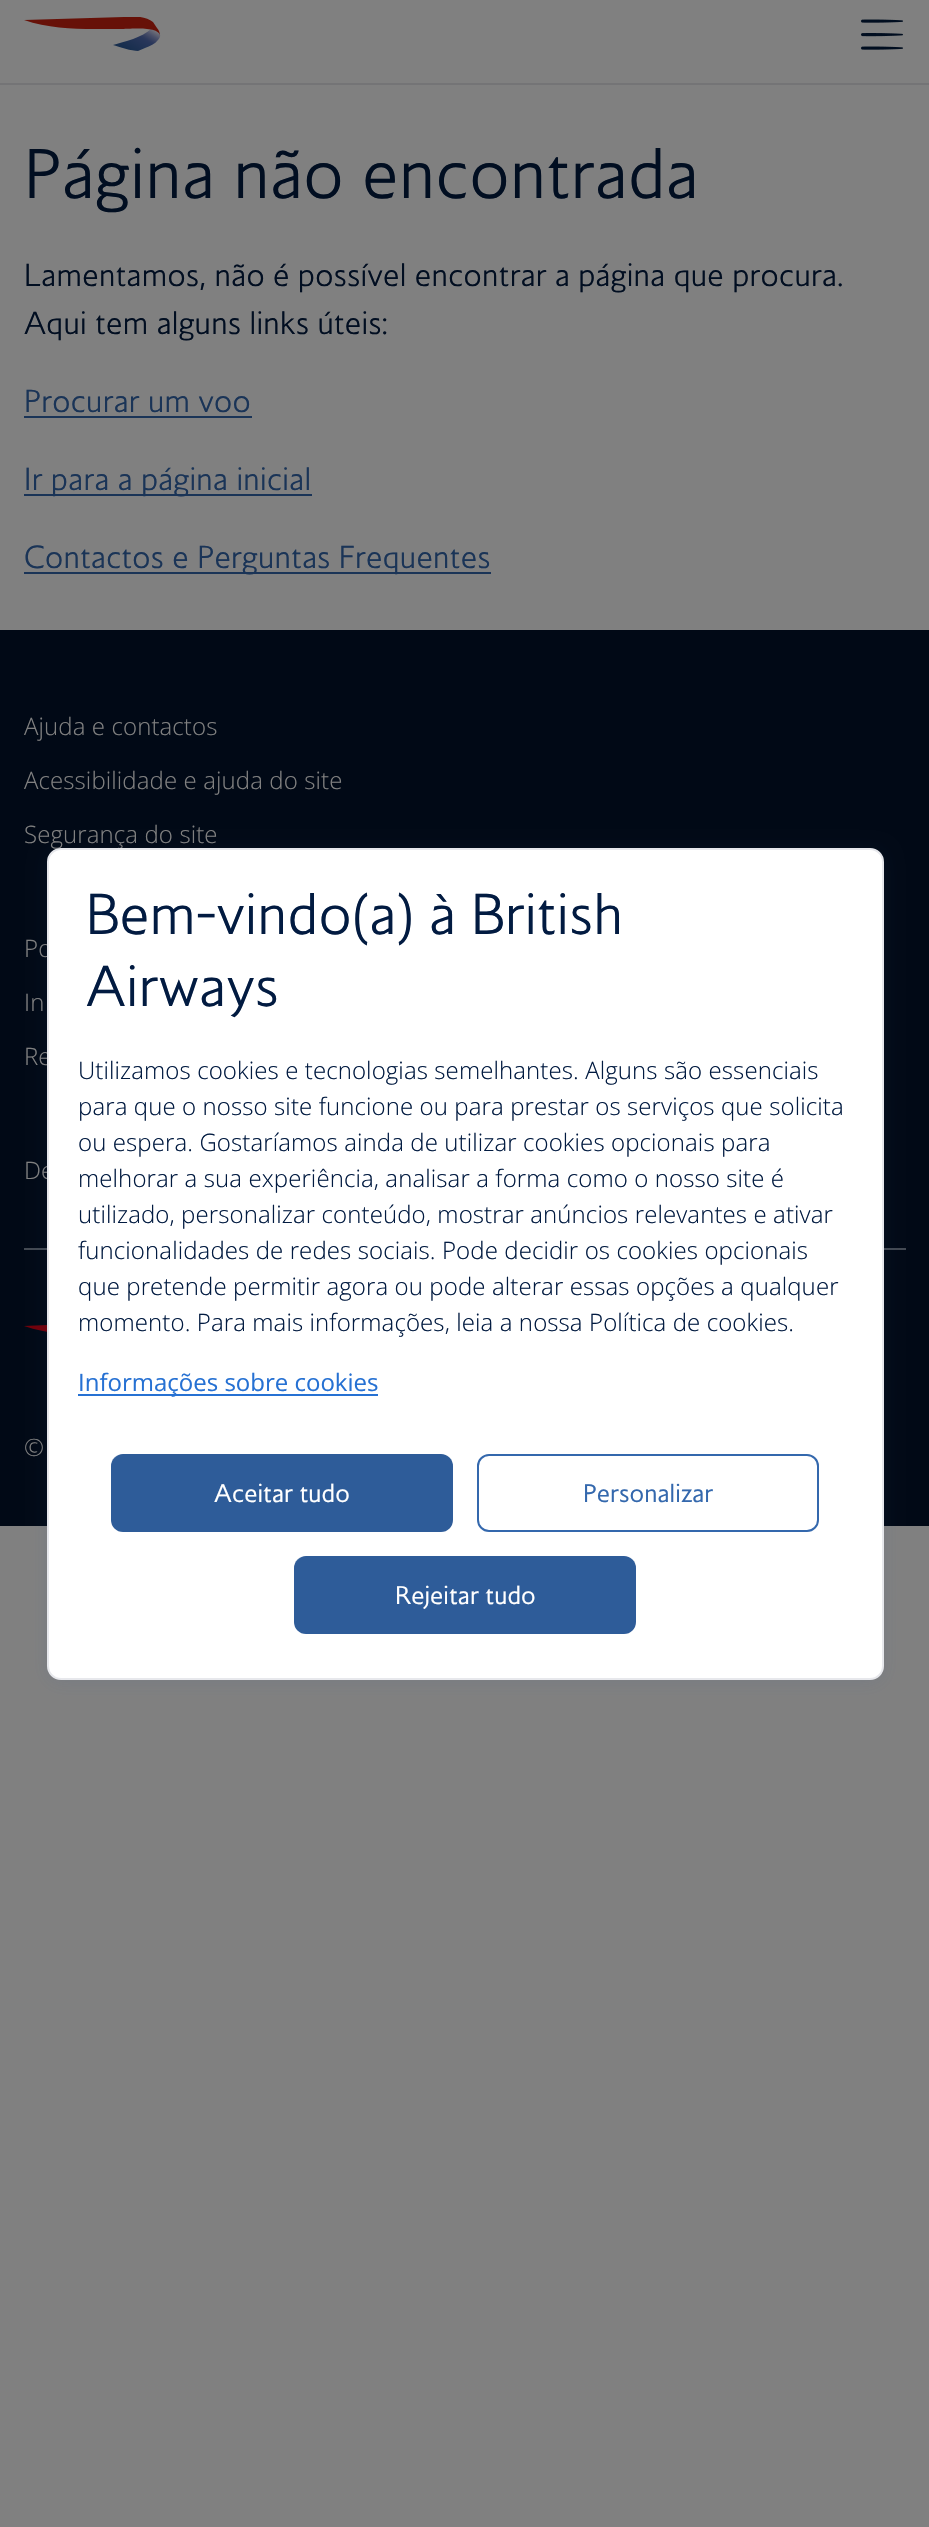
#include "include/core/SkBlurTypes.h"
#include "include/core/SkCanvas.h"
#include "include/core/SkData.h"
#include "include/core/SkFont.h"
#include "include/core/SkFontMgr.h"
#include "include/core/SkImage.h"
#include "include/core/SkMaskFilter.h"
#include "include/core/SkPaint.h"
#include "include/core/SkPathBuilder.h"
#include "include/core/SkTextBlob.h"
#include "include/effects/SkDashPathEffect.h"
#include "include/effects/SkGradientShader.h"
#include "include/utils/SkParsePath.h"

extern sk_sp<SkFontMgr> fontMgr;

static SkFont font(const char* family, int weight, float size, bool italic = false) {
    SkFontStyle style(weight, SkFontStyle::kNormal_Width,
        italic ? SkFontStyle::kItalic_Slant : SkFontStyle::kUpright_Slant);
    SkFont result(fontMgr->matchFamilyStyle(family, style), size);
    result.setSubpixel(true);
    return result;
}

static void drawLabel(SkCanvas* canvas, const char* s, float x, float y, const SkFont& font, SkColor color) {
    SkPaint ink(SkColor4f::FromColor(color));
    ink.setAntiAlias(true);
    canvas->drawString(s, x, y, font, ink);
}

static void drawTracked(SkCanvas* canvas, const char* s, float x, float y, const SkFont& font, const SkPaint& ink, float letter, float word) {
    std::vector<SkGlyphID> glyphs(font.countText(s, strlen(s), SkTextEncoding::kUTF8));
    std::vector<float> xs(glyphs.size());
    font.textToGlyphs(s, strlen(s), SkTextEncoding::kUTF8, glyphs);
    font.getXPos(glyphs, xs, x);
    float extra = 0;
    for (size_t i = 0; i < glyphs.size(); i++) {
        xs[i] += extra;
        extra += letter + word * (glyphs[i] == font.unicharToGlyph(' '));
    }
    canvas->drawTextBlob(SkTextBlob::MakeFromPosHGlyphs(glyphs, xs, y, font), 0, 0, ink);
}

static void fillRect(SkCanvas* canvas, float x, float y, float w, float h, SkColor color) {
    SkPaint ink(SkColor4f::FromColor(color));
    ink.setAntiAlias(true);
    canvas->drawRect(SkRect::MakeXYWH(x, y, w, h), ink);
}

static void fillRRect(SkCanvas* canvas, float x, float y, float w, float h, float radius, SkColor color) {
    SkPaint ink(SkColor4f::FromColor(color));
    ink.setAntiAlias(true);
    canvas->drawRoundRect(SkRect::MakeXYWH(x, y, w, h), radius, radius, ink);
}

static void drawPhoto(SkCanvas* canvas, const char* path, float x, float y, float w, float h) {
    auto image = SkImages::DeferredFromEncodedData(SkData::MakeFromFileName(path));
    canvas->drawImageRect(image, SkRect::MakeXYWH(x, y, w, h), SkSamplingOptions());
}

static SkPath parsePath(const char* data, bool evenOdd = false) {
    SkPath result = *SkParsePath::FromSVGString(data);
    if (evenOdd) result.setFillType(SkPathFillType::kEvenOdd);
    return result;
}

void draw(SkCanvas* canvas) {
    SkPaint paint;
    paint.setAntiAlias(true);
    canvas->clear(0xFF808080);
    fillRect(canvas, 0, 83, 929, 2, 0xFF747476);
    {
        const SkColor colors[] = {0xFF75757B, 0xFF646674, 0xFF4B5069, 0xFF394260, 0xFF2D395B, 0xFF28365A, 0xFF172E4D};
        const float stops[] = {0, 0.07f, 0.18f, 0.28f, 0.35f, 0.4f, 0.9f};
        const SkPoint ends[] = {{146, 25}, {129, 54}};
        paint.setShader(SkGradientShader::MakeLinear(ends, colors, stops, 7, SkTileMode::kClamp));
        paint.setAlpha(255);
    }
    canvas->drawPath(parsePath("M151 29C143 37 124 42 113 45C119 47 132 51 138 51L145 48C150 46 155 44 158 40C164 34 157 30 151 29Z"), paint);
    canvas->save();
    canvas->clipRect(SkRect::MakeXYWH(24, 17, 137, 36));
    paint.setShader(nullptr);
    paint.setColor(0xFF671108);
    canvas->drawPath(parsePath("M160 36C160 26 128 29 123 29H95C71 29 47 28 24 20L124 17C133 16 146 16 153 22L157 28C159 30 160 33 160 36Z"), paint);
    canvas->restore();
    drawPhoto(canvas, "assets/img1.png", 861, 19, 42, 31);
    SkFont font1 = font("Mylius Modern", 300, 66);
    paint.setColor(0xFF010E21);
    drawTracked(canvas, "Página não encontrada", 24, 198, font1, paint, 0.75f, 0);
    SkFont font2 = font("Mylius Modern", 300, 30);
    drawTracked(canvas, "Lamentamos, não é possível encontrar a página que procura.", 24, 286, font2, paint, 0.35f, 0);
    drawTracked(canvas, "Aqui tem alguns links úteis:", 24, 334, font2, paint, 0.35f, 0);
    paint.setColor(0xFF1A3457);
    drawTracked(canvas, "Procurar um voo", 24, 412, font2, paint, 0.35f, 0);
    fillRect(canvas, 24, 416, 228, 2, 0xFF1A3457);
    fillRect(canvas, 24, 494, 288, 2, 0xFF1A3457);
    drawTracked(canvas, "Ir para a página inicial", 24, 490, font2, paint, 0.35f, 0);
    fillRect(canvas, 24, 572, 467, 2, 0xFF1A3457);
    drawTracked(canvas, "Contactos e Perguntas Frequentes", 24, 568, font2, paint, 0.35f, 0);
    fillRect(canvas, 0, 630, 929, 896, 0xFF010916);
    fillRect(canvas, 24, 1248, 882, 2, 0xFF434952);
    SkFont font3 = font("Open Sans", 300, 24);
    paint.setColor(0xFF808080);
    drawTracked(canvas, "Ajuda e contactos", 24, 735, font3, paint, 0.1f, 0);
    drawTracked(canvas, "Acessibilidade e ajuda do site", 24, 789, font3, paint, 0.1f, 0);
    drawTracked(canvas, "Segurança do site", 24, 843, font3, paint, 0.1f, 0);
    drawTracked(canvas, "Po", 24, 957, font3, paint, 0.1f, 0);
    drawTracked(canvas, "In", 24, 1011, font3, paint, 0.1f, 0);
    drawTracked(canvas, "Re", 24, 1065, font3, paint, 0.1f, 0);
    drawTracked(canvas, "De", 24, 1179, font3, paint, 0.1f, 0);
    paint.setColor(0xFF72000A);
    canvas->drawPath(parsePath("M123 1335C128 1334 160 1332 160 1341C160 1339 159 1337 158 1335C151 1320 134 1322 120 1322L24 1326C56 1337 90 1335 123 1335Z"), paint);
    paint.setColor(0xFF808080);
    drawTracked(canvas, "©", 24, 1456, font3, paint, 0.1f, 0);
    paint.setColor(0x1A2E5C99);
    paint.setMaskFilter(SkMaskFilter::MakeBlur(kNormal_SkBlurStyle, 9));
    canvas->drawRoundRect(SkRect::MakeXYWH(47, 851, 837, 832), 14, 14, paint);
    paint.setMaskFilter(nullptr);
    paint.setColor(0xFFFFFFFF);
    canvas->drawRoundRect(SkRect::MakeXYWH(48, 849, 835, 830), 13, 13, paint);
    paint.setStroke(true);
    paint.setStrokeWidth(2);
    paint.setColor(0xFFE7E8EC);
    canvas->drawRoundRect(SkRect::MakeXYWH(48, 849, 835, 830), 13, 13, paint);
    SkFont font4 = font("Mylius Modern", 300, 54);
    paint.setStroke(false);
    paint.setColor(0xFF021B41);
    drawTracked(canvas, "Bem-vindo(a) à British", 86, 934, font4, paint, 0.65f, 0);
    drawTracked(canvas, "Airways", 86, 1006, font4, paint, 0.65f, 0);
    drawTracked(canvas, "Utilizamos cookies e tecnologias semelhantes. Alguns são essenciais", 78, 1079, font3, paint, 0.1f, 0);
    drawTracked(canvas, "para que o nosso site funcione ou para prestar os serviços que solicita", 78, 1115, font3, paint, 0.1f, 0);
    drawTracked(canvas, "ou espera. Gostaríamos ainda de utilizar cookies opcionais para", 78, 1151, font3, paint, 0.1f, 0);
    drawTracked(canvas, "melhorar a sua experiência, analisar a forma como o nosso site é", 78, 1187, font3, paint, 0.1f, 0);
    drawTracked(canvas, "utilizado, personalizar conteúdo, mostrar anúncios relevantes e ativar", 78, 1223, font3, paint, 0.1f, 0);
    drawTracked(canvas, "funcionalidades de redes sociais. Pode decidir os cookies opcionais", 78, 1259, font3, paint, 0.1f, 0);
    drawTracked(canvas, "que pretende permitir agora ou pode alterar essas opções a qualquer", 78, 1295, font3, paint, 0.1f, 0);
    drawTracked(canvas, "momento. Para mais informações, leia a nossa Política de cookies.", 78, 1331, font3, paint, 0.1f, 0);
    fillRect(canvas, 78, 1394, 300, 2, 0xFF2671D3);
    SkFont font5 = font("Open Sans", 400, 24);
    drawLabel(canvas, "Informações sobre cookies", 78, 1391, font5, 0xFF2671D3);
    fillRRect(canvas, 111, 1454, 342, 78, 12, 0xFF2E5C99);
    paint.setColor(0x80FFFFFF);
    canvas->drawPath(parsePath("M111 1466C111 1460 115 1455 122 1454C116 1455 111 1460 111 1466ZM441 1454C448 1454 453 1460 453 1466C453 1459 448 1454 441 1454Z", true), paint);
    SkFont font6 = font("Mylius Modern", 400, 24);
    paint.setColor(0xFFFFFFFF);
    drawTracked(canvas, "Aceitar tudo", 214, 1502, font6, paint, 0.1f, 0);
    paint.setStroke(true);
    paint.setColor(0xFF3468AD);
    canvas->drawRoundRect(SkRect::MakeXYWH(478, 1455, 340, 76), 11, 11, paint);
    paint.setStroke(false);
    drawTracked(canvas, "Personalizar", 583, 1502, font6, paint, 0.1f, 0);
    fillRRect(canvas, 294, 1556, 342, 78, 12, 0xFF2E5C99);
    paint.setColor(0x80FFFFFF);
    canvas->drawPath(parsePath("M294 1568C294 1562 298 1557 305 1556C299 1557 294 1562 294 1568ZM624 1556C631 1556 636 1562 636 1568C636 1561 631 1556 624 1556Z", true), paint);
    paint.setColor(0xFFFFFFFF);
    drawTracked(canvas, "Rejeitar tudo", 395, 1604, font6, paint, 0.1f, 0);
}
